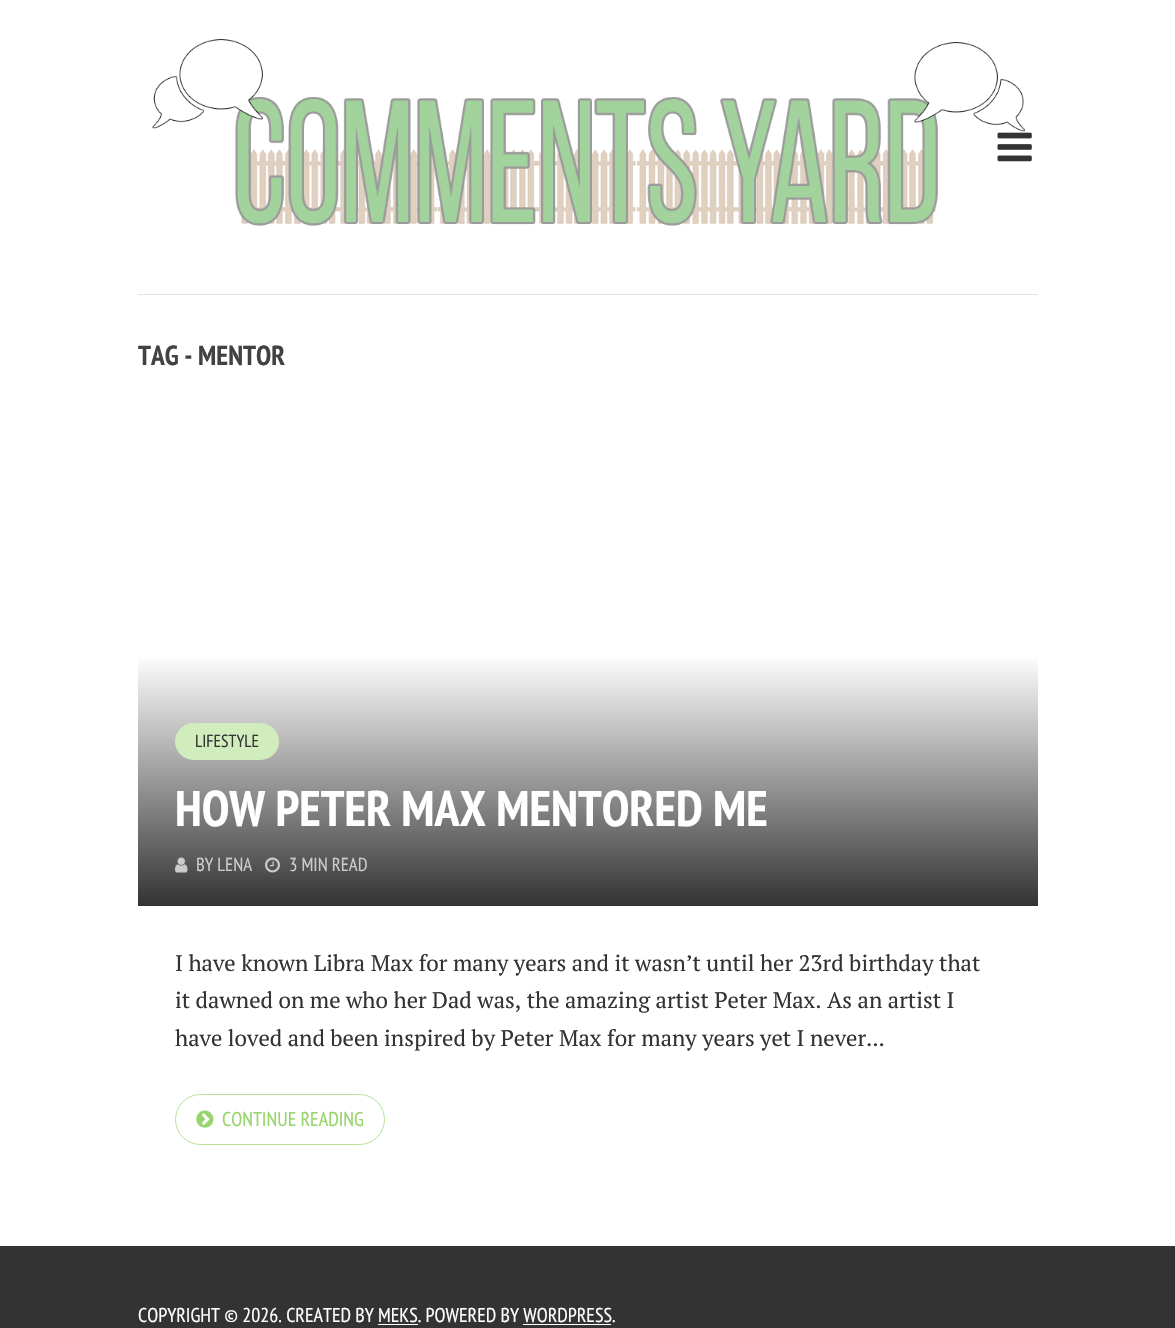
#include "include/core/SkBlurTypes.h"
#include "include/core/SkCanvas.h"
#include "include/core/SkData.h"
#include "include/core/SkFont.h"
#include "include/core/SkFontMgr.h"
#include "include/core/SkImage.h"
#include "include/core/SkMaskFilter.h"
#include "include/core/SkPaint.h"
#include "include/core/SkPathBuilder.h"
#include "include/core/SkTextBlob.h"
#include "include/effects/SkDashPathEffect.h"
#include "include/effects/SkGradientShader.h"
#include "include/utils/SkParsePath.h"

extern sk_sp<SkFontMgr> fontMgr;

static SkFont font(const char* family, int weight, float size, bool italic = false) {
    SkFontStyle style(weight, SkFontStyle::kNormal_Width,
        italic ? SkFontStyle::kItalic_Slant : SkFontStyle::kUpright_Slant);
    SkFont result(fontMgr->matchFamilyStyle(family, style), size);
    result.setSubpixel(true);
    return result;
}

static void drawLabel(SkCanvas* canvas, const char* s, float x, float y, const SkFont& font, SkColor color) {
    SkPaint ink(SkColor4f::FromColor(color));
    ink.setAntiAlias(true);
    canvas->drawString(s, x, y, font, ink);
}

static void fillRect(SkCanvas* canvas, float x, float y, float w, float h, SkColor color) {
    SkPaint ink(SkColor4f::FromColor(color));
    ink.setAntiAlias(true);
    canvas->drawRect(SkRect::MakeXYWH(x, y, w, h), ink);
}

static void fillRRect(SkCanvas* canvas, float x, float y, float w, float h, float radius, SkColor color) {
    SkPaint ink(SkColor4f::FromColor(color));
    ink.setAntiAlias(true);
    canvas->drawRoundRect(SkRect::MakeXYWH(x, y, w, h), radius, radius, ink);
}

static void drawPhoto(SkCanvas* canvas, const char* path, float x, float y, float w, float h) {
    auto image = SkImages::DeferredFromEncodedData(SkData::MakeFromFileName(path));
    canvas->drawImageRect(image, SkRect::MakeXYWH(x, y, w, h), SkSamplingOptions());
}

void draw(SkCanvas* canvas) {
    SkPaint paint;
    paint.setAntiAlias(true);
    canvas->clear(0xFFFFFFFF);
    drawPhoto(canvas, "assets/img1.png", 152, 39, 873, 187);
    drawPhoto(canvas, "assets/img2.png", 997, 132, 35, 30);
    fillRect(canvas, 138, 294, 900, 1, 0xFFE0E0E0);
    SkFont font1 = font("PT Sans Narrow", 700, 27.5f);
    drawLabel(canvas, "TAG - MENTOR", 138, 365, font1, 0xFF424242);
    {
        const SkColor colors[] = {0xFFFFFFFF, 0xFF333333};
        const float stops[] = {0, 1};
        const SkPoint ends[] = {{588, 654}, {588, 906}};
        paint.setShader(SkGradientShader::MakeLinear(ends, colors, stops, 2, SkTileMode::kClamp));
        paint.setAlpha(255);
    }
    canvas->drawRect(SkRect::MakeXYWH(138, 657, 900, 249), paint);
    fillRRect(canvas, 175, 723, 104, 37, 18.5f, 0xFFD1EDBE);
    SkFont font2 = font("PT Sans Narrow", 400, 17.5f);
    drawLabel(canvas, "LIFESTYLE", 195, 747, font2, 0xFF333333);
    SkFont font3 = font("PT Sans Narrow", 700, 50);
    drawLabel(canvas, "HOW PETER MAX MENTORED ME", 175, 826, font3, 0xFFFFFFFF);
    drawPhoto(canvas, "assets/img3.png", 175, 857, 13, 16);
    SkFont font4 = font("PT Sans Narrow", 400, 18.75f);
    drawLabel(canvas, "BY LENA", 196, 871, font4, 0xFFCCCCCC);
    drawPhoto(canvas, "assets/img4.png", 265, 857, 15, 16);
    drawLabel(canvas, "3 MIN READ", 289, 871, font4, 0xFFCCCCCC);
    SkFont font5 = font("PT Serif", 400, 22.5f);
    drawLabel(canvas, "I have known Libra Max for many years and it wasn’t until her 23rd birthday that", 175, 971, font5, 0xFF333333);
    drawLabel(canvas, "it dawned on me who her Dad was, the amazing artist Peter Max. As an artist I", 175, 1008, font5, 0xFF333333);
    drawLabel(canvas, "have loved and been inspired by Peter Max for many years yet I never...", 175, 1046, font5, 0xFF333333);
    paint.setStroke(true);
    paint.setStrokeWidth(1);
    paint.setShader(nullptr);
    paint.setColor(0xFFB6E297);
    canvas->drawRoundRect(SkRect::MakeXYWH(175.5f, 1094.5f, 209, 50), 25, 25, paint);
    drawPhoto(canvas, "assets/img5.png", 196, 1110, 18, 18);
    SkFont font6 = font("PT Sans Narrow", 400, 20);
    drawLabel(canvas, "CONTINUE READING", 222, 1126, font6, 0xFF96D56B);
    fillRect(canvas, 0, 1246, 1175, 82, 0xFF333333);
    drawLabel(canvas, "COPYRIGHT © 2026. CREATED BY MEKS. POWERED BY WORDPRESS.", 138, 1322, font6, 0xFFFFFFFF);
    fillRect(canvas, 378, 1324, 40, 1, 0xFFFFFFFF);
    fillRect(canvas, 523, 1324, 88, 1, 0xFFFFFFFF);
}
